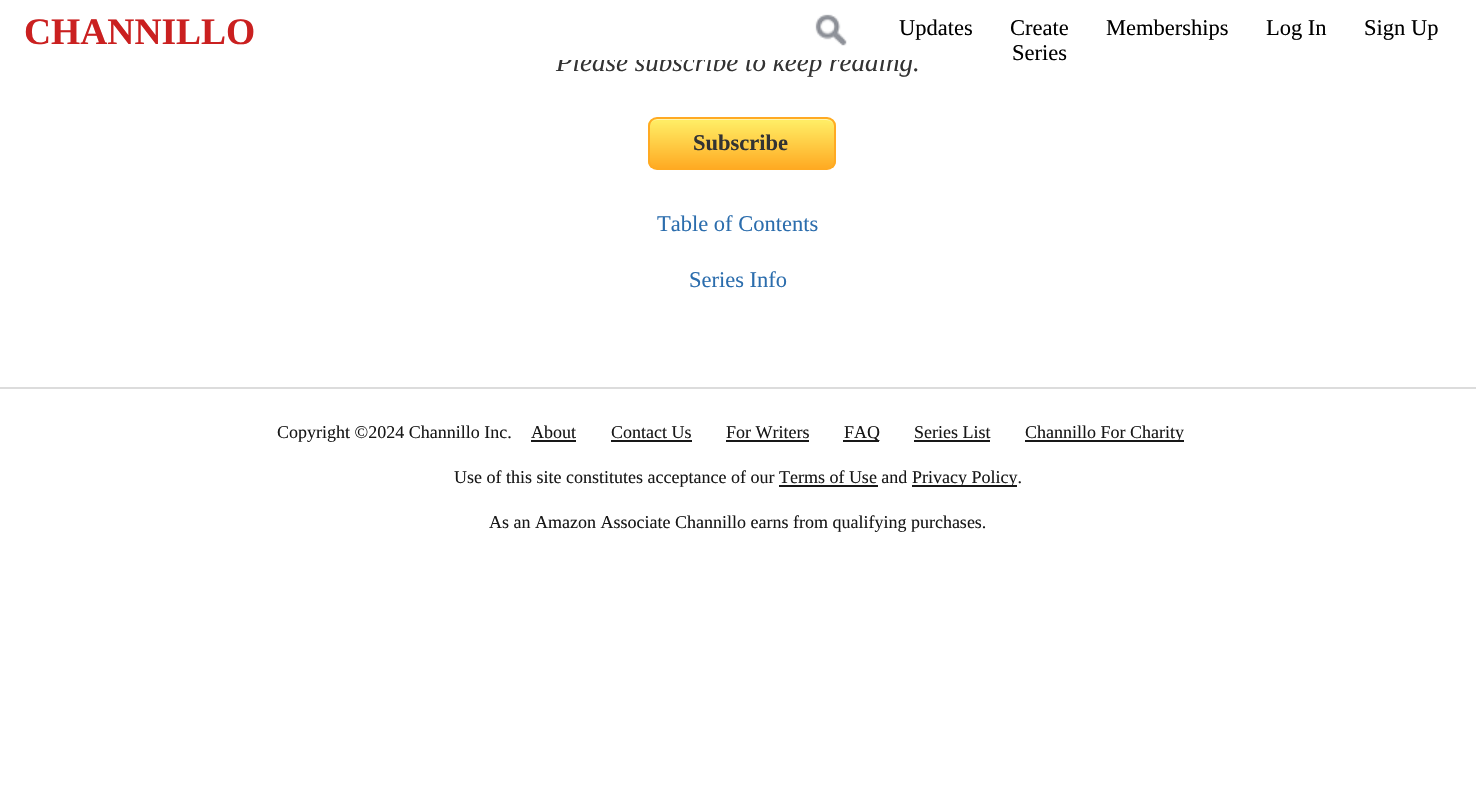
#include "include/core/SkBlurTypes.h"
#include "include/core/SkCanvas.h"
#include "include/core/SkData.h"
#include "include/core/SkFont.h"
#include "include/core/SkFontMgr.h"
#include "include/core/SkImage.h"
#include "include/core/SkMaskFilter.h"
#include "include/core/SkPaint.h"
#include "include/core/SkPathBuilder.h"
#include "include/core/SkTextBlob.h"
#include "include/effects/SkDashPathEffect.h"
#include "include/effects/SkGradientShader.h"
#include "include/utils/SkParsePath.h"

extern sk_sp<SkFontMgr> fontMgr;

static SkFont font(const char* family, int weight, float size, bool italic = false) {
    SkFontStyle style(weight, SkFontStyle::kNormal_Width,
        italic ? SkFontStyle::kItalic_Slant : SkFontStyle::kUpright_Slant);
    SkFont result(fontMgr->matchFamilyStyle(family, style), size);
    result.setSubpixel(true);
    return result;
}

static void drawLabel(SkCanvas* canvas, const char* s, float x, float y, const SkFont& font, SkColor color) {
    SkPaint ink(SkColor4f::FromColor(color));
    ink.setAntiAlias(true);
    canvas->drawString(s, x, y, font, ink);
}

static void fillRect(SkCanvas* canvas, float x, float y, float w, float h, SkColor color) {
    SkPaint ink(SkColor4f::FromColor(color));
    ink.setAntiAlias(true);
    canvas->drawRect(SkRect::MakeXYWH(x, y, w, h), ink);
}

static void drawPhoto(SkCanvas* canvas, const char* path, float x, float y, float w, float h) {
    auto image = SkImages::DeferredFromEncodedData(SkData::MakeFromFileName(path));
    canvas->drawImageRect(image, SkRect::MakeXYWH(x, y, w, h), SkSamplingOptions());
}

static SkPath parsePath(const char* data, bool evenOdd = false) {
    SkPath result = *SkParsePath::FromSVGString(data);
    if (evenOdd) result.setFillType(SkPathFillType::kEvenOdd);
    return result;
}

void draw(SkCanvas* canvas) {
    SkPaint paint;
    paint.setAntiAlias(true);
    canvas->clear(0xFFFFFFFF);
    SkFont font1 = font("Liberation Serif", 400, 27, true);
    drawLabel(canvas, "Please subscribe to keep reading.", 556, 71, font1, 0xFF333333);
    fillRect(canvas, 558, 52, 355, 8, 0xFFFFFFFF);
    SkFont font2 = font("Liberation Serif", 700, 37.5f);
    drawLabel(canvas, "CHANNILLO", 24, 44, font2, 0xFFCA2020);
    drawPhoto(canvas, "assets/img1.png", 815, 14, 32, 32);
    SkFont font3 = font("Liberation Serif", 400, 22.5f);
    drawLabel(canvas, "Updates", 899, 35, font3, 0xFF000000);
    drawLabel(canvas, "Create", 1010, 35, font3, 0xFF000000);
    drawLabel(canvas, "Series", 1012, 60, font3, 0xFF000000);
    drawLabel(canvas, "Memberships", 1106, 35, font3, 0xFF000000);
    drawLabel(canvas, "Log In", 1266, 35, font3, 0xFF000000);
    drawLabel(canvas, "Sign Up", 1364, 35, font3, 0xFF000000);
    canvas->save();
    canvas->clipPath(parsePath("M657 117H827C832 117 836 121 836 126V161C836 166 832 170 827 170H657C652 170 648 166 648 161V126C648 121 652 117 657 117Z"), true);
    {
        const SkColor colors[] = {0xFFFFEC64, 0xFFFFAB23};
        const float stops[] = {0.05f, 1};
        const SkPoint ends[] = {{742, 119}, {742, 168}};
        paint.setShader(SkGradientShader::MakeLinear(ends, colors, stops, 2, SkTileMode::kClamp));
        paint.setAlpha(255);
    }
    canvas->drawRect(SkRect::MakeXYWH(648, 119, 188, 49), paint);
    canvas->restore();
    paint.setShader(nullptr);
    paint.setColor(0xFFFFF6AF);
    canvas->drawPath(parsePath("M657 120H826C831 120 834 123 834 128V127C834 123 830 119 826 119H658C654 119 650 123 650 127V128C650 123 653 120 657 120Z"), paint);
    paint.setStroke(true);
    paint.setStrokeWidth(2);
    paint.setColor(0xFFFFAA22);
    canvas->drawRoundRect(SkRect::MakeXYWH(649, 118, 186, 51), 8, 8, paint);
    SkFont font4 = font("Liberation Serif", 700, 22.5f);
    drawLabel(canvas, "Subscribe", 693, 150, font4, 0xFF333333);
    drawLabel(canvas, "Table of Contents", 657, 231, font3, 0xFF2B6DAD);
    drawLabel(canvas, "Series Info", 689, 287, font3, 0xFF2B6DAD);
    fillRect(canvas, 0, 387, 1476, 2, 0xFFDCDCDC);
    SkFont font5 = font("Liberation Serif", 400, 18);
    drawLabel(canvas, "Copyright ©2024 Channillo Inc.", 277, 438, font5, 0xFF181818);
    drawLabel(canvas, "About", 531, 438, font5, 0xFF181818);
    fillRect(canvas, 531, 440, 45, 2, 0xFF181818);
    drawLabel(canvas, "Contact Us", 611, 438, font5, 0xFF181818);
    fillRect(canvas, 611, 440, 81, 2, 0xFF181818);
    drawLabel(canvas, "For Writers", 726, 438, font5, 0xFF181818);
    fillRect(canvas, 726, 440, 83, 2, 0xFF181818);
    fillRect(canvas, 843, 440, 36, 2, 0xFF181818);
    drawLabel(canvas, "FAQ", 844, 438, font5, 0xFF181818);
    drawLabel(canvas, "Series List", 914, 438, font5, 0xFF181818);
    fillRect(canvas, 914, 440, 76, 2, 0xFF181818);
    fillRect(canvas, 1025, 440, 159, 2, 0xFF181818);
    drawLabel(canvas, "Channillo For Charity", 1025, 438, font5, 0xFF181818);
    drawLabel(canvas, "Use of this site constitutes acceptance of our Terms of Use and", 454, 483, font5, 0xFF181818);
    fillRect(canvas, 912, 485, 105, 2, 0xFF181818);
    drawLabel(canvas, "Privacy Policy.", 912, 483, font5, 0xFF181818);
    fillRect(canvas, 779, 485, 99, 2, 0xFF181818);
    drawLabel(canvas, "As an Amazon Associate Channillo earns from qualifying purchases.", 489, 528, font5, 0xFF181818);
}
